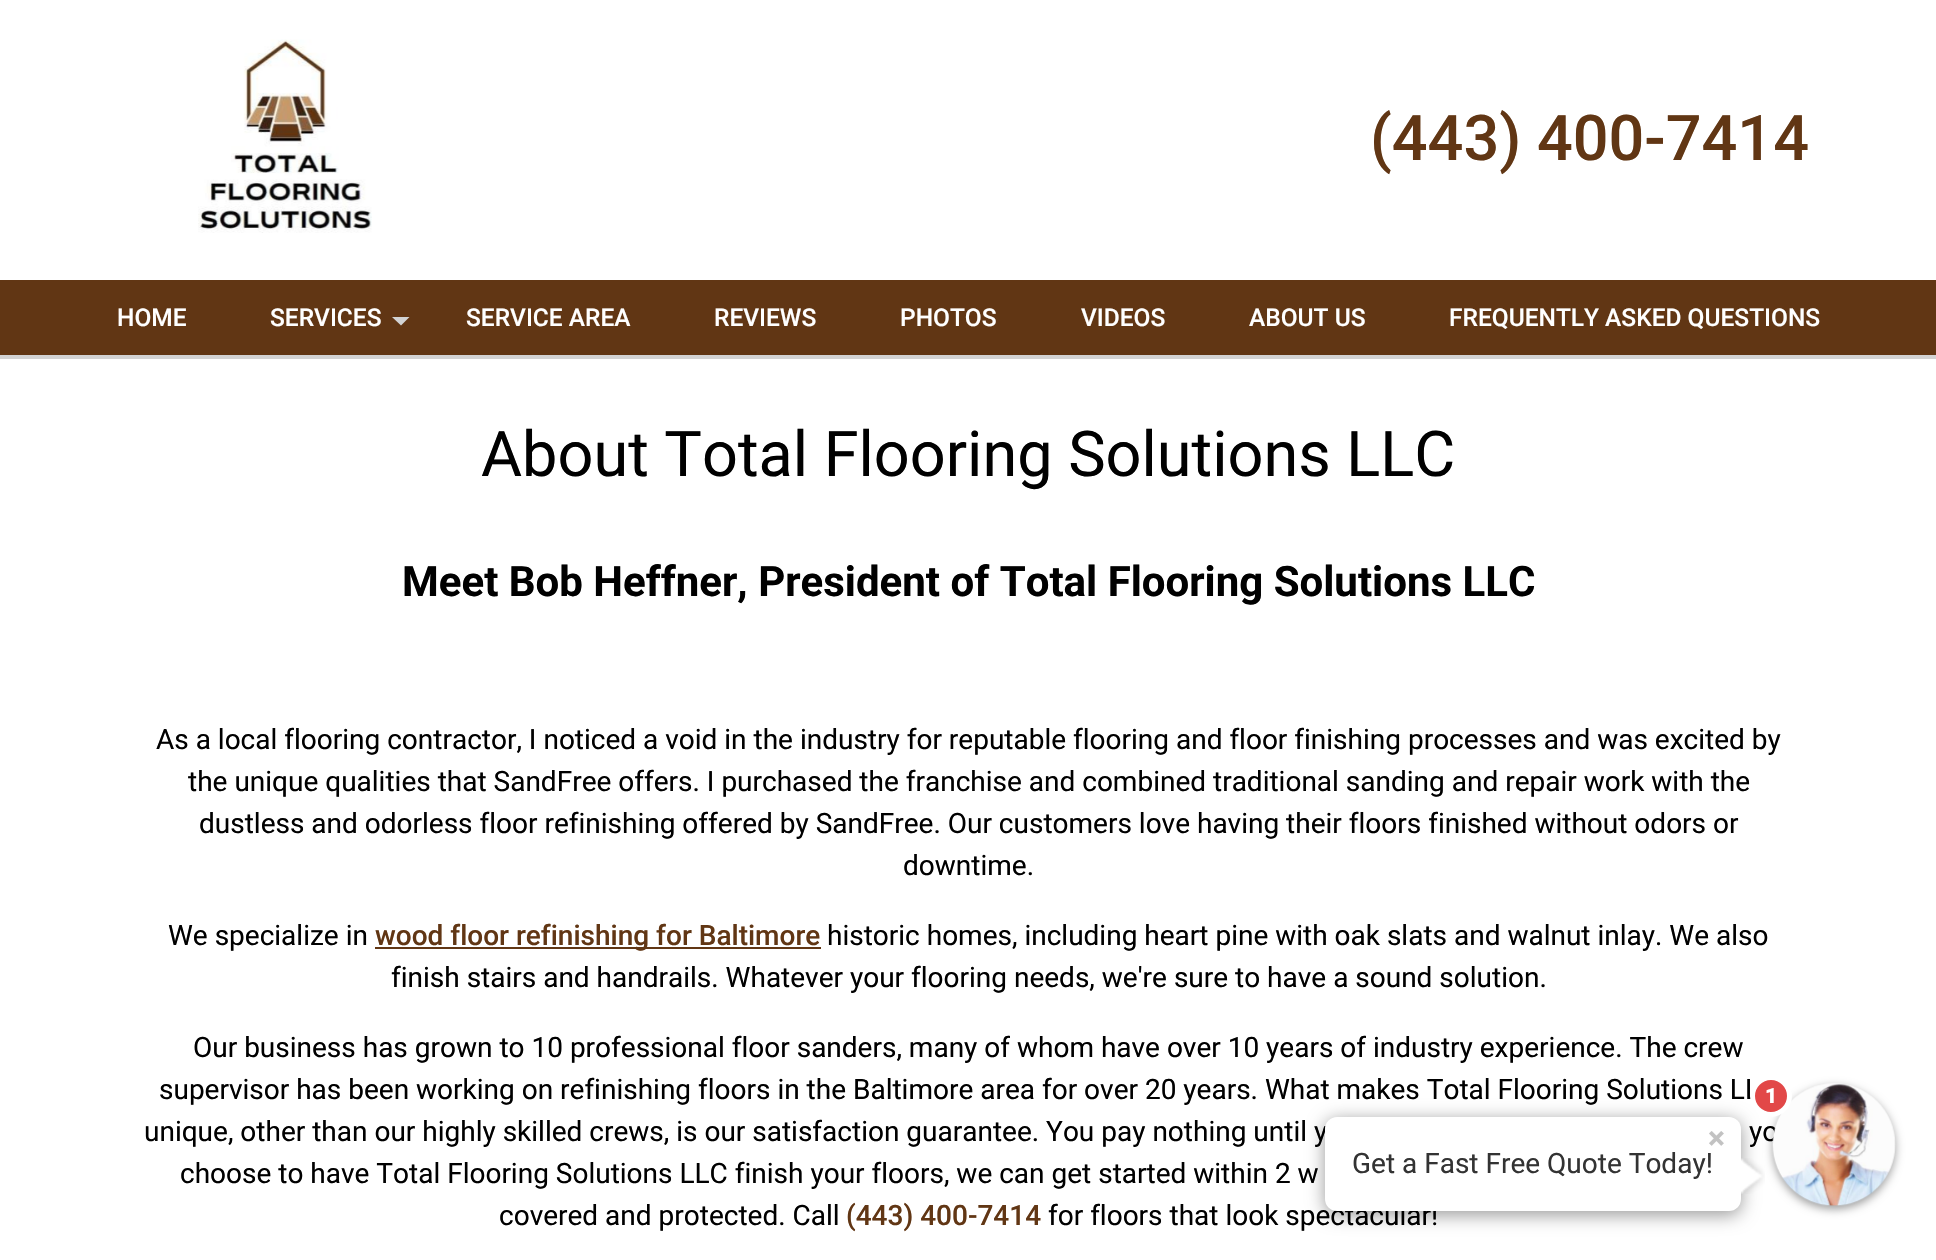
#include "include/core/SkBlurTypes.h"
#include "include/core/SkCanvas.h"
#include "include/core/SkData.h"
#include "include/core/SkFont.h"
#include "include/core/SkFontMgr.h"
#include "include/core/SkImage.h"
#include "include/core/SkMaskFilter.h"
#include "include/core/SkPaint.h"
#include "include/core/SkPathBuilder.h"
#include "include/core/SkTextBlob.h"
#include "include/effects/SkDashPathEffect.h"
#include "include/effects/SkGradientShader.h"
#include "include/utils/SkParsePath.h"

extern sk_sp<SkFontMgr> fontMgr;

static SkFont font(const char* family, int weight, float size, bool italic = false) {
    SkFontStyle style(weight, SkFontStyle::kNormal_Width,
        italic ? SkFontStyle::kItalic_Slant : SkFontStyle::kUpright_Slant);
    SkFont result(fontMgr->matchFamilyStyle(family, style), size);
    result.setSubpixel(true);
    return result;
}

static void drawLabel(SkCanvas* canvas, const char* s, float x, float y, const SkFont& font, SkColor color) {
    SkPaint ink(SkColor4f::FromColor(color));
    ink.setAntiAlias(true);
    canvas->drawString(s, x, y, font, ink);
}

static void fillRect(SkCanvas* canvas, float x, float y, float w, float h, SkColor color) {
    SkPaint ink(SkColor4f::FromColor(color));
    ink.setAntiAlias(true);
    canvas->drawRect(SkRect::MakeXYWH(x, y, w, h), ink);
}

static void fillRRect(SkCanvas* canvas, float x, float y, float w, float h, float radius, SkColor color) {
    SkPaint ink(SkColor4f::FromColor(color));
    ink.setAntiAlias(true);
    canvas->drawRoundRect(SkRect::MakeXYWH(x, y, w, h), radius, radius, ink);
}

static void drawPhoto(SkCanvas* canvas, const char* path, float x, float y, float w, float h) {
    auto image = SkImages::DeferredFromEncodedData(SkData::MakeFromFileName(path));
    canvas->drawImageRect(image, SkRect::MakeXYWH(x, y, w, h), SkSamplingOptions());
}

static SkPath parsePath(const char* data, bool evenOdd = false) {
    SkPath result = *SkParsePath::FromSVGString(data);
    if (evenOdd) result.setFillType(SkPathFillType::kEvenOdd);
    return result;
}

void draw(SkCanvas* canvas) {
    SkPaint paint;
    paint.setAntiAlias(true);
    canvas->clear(0xFFFFFFFF);
    fillRect(canvas, 0, 355, 1936, 4, 0xFFD3D3D3);
    drawPhoto(canvas, "assets/img1.png", 198, 39, 174, 194);
    SkFont font1 = font("Roboto", 500, 63);
    drawLabel(canvas, "(443) 400-7414", 1370, 160, font1, 0xFF613614);
    fillRect(canvas, 0, 280, 1936, 75, 0xFF613614);
    SkFont font2 = font("Roboto", 500, 24.5f);
    drawLabel(canvas, "HOME", 117, 326, font2, 0xFFFFFFFF);
    drawLabel(canvas, "SERVICES", 270, 326, font2, 0xFFFFFFFF);
    paint.setColor(0xFFD2D3D4);
    canvas->drawPath(parsePath("M392 317H409.5L401 325.5Z"), paint);
    drawLabel(canvas, "SERVICE AREA", 466, 326, font2, 0xFFFFFFFF);
    drawLabel(canvas, "REVIEWS", 714, 326, font2, 0xFFFFFFFF);
    drawLabel(canvas, "PHOTOS", 900, 326, font2, 0xFFFFFFFF);
    drawLabel(canvas, "VIDEOS", 1081, 326, font2, 0xFFFFFFFF);
    drawLabel(canvas, "ABOUT US", 1249, 326, font2, 0xFFFFFFFF);
    drawLabel(canvas, "FREQUENTLY ASKED QUESTIONS", 1449, 326, font2, 0xFFFFFFFF);
    SkFont font3 = font("Roboto", 400, 63);
    drawLabel(canvas, "About Total Flooring Solutions LLC", 481, 476, font3, 0xFF000000);
    SkFont font4 = font("Roboto", 700, 42);
    drawLabel(canvas, "Meet Bob Heffner, President of Total Flooring Solutions LLC", 402, 596, font4, 0xFF000000);
    SkFont font5 = font("Roboto", 400, 28);
    drawLabel(canvas, "As a local flooring contractor, I noticed a void in the industry for reputable flooring and floor finishing processes and was excited by", 156, 749, font5, 0xFF000000);
    drawLabel(canvas, "the unique qualities that SandFree offers. I purchased the franchise and combined traditional sanding and repair work with the", 188, 791, font5, 0xFF000000);
    drawLabel(canvas, "dustless and odorless floor refinishing offered by SandFree. Our customers love having their floors finished without odors or", 199, 833, font5, 0xFF000000);
    drawLabel(canvas, "downtime.", 903, 875, font5, 0xFF000000);
    drawLabel(canvas, "We specialize in", 168, 945, font5, 0xFF000000);
    fillRect(canvas, 375, 947, 446, 2, 0xFF613614);
    SkFont font6 = font("Roboto", 500, 28);
    drawLabel(canvas, "wood floor refinishing for Baltimore", 375, 945, font6, 0xFF613614);
    drawLabel(canvas, "historic homes, including heart pine with oak slats and walnut inlay. We also", 827, 945, font5, 0xFF000000);
    drawLabel(canvas, "finish stairs and handrails. Whatever your flooring needs, we're sure to have a sound solution.", 391, 987, font5, 0xFF000000);
    drawLabel(canvas, "Our business has grown to 10 professional floor sanders, many of whom have over 10 years of industry experience. The crew", 193, 1057, font5, 0xFF000000);
    drawLabel(canvas, "supervisor has been working on refinishing floors in the Baltimore area for over 20 years. What makes Total Flooring Solutions LL", 159, 1099, font5, 0xFF000000);
    drawLabel(canvas, "unique, other than our highly skilled crews, is our satisfaction guarantee. You pay nothing until y", 144, 1141, font5, 0xFF000000);
    drawLabel(canvas, "yo", 1749, 1141, font5, 0xFF000000);
    drawLabel(canvas, "choose to have Total Flooring Solutions LLC finish your floors, we can get started within 2 w", 180, 1183, font5, 0xFF000000);
    drawLabel(canvas, "covered and protected. Call", 499, 1225, font5, 0xFF000000);
    drawLabel(canvas, "(443) 400-7414", 846, 1225, font6, 0xFF613614);
    drawLabel(canvas, "for floors that look spectacular!", 1048, 1225, font5, 0xFF000000);
    paint.setColor(0x66000000);
    paint.setMaskFilter(SkMaskFilter::MakeBlur(kNormal_SkBlurStyle, 5));
    canvas->drawRoundRect(SkRect::MakeXYWH(1773, 1087, 122, 122), 61, 61, paint);
    paint.setMaskFilter(nullptr);
    drawPhoto(canvas, "assets/img2.png", 1772, 1083, 124, 123);
    paint.setMaskFilter(SkMaskFilter::MakeBlur(kNormal_SkBlurStyle, 9));
    canvas->drawRoundRect(SkRect::MakeXYWH(1325, 1120, 416, 95), 12, 12, paint);
    paint.setMaskFilter(nullptr);
    paint.setColor(0xFFE24848);
    canvas->drawCircle(1771, 1096, 18.5f, paint);
    paint.setStroke(true);
    paint.setStrokeWidth(5);
    paint.setColor(0xFFFFFFFF);
    canvas->drawCircle(1771, 1096, 18.5f, paint);
    SkFont font7 = font("Roboto", 900, 21);
    drawLabel(canvas, "1", 1765, 1103, font7, 0xFFFFFFFF);
    fillRRect(canvas, 1325, 1117, 416, 94, 12, 0xFFFFFFFF);
    SkFont font8 = font("Roboto", 700, 32);
    drawLabel(canvas, "×", 1708, 1149, font8, 0xFFC2C2C2);
    drawLabel(canvas, "Get a Fast Free Quote Today!", 1352, 1173, font5, 0xFF333333);
    drawPhoto(canvas, "assets/img3.png", 1741, 1158, 24, 36);
}
